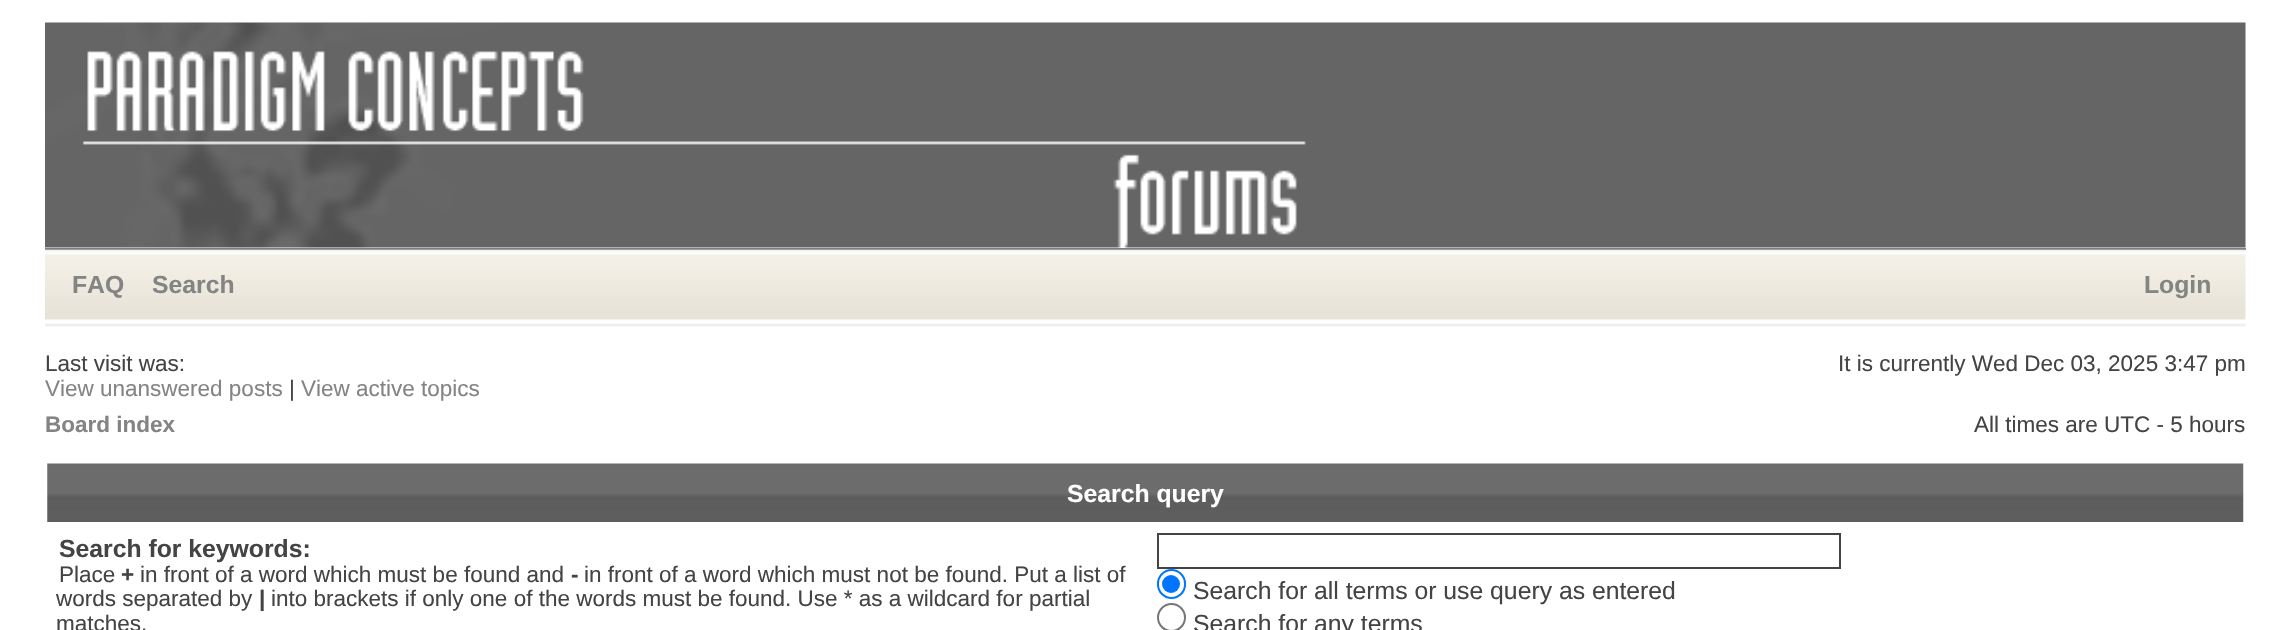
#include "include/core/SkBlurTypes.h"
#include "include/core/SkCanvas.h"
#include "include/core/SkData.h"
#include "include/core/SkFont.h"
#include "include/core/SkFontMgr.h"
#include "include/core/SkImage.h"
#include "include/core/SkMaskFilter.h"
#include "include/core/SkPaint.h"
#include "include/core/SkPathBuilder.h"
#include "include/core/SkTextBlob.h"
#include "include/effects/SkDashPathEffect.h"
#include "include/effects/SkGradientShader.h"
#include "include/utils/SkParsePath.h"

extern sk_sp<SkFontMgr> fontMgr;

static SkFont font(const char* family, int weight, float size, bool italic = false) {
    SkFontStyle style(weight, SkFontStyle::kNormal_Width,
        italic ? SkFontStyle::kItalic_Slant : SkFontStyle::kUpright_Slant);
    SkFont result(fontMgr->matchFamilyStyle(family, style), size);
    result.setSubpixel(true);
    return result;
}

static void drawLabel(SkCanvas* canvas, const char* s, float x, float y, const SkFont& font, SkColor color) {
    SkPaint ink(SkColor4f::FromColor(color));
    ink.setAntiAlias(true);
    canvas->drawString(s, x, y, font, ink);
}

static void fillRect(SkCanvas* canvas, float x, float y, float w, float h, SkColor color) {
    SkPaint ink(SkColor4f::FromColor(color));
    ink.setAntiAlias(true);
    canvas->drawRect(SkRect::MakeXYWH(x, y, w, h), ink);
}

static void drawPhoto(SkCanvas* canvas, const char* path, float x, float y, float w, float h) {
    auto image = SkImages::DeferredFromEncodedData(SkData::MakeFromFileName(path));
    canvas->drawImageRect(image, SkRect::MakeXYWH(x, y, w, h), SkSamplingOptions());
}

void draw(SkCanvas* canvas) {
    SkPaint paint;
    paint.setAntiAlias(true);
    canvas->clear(0xFFFFFFFF);
    fillRect(canvas, 45, 248, 2201, 2, 0xFF808080);
    drawPhoto(canvas, "assets/img1.png", 45, 22, 2201, 226);
    drawPhoto(canvas, "assets/img2.png", 45, 249, 2201, 78);
    SkFont font1 = font("Liberation Sans", 700, 24.75f);
    drawLabel(canvas, "FAQ", 72, 293, font1, 0xFF848484);
    drawLabel(canvas, "Search", 152, 293, font1, 0xFF848484);
    drawLabel(canvas, "Login", 2144, 293, font1, 0xFF848484);
    SkFont font2 = font("Liberation Sans", 400, 22.5f);
    drawLabel(canvas, "Last visit was:", 45, 371, font2, 0xFF444444);
    drawLabel(canvas, "It is currently Wed Dec 03, 2025 3:47 pm", 1838, 371, font2, 0xFF444444);
    drawLabel(canvas, "View unanswered posts", 45, 396, font2, 0xFF848484);
    drawLabel(canvas, "|", 289, 396, font2, 0xFF444444);
    drawLabel(canvas, "View active topics", 301, 396, font2, 0xFF848484);
    SkFont font3 = font("Liberation Sans", 700, 22.5f);
    drawLabel(canvas, "Board index", 45, 432, font3, 0xFF848484);
    drawLabel(canvas, "All times are UTC - 5 hours", 1974, 432, font2, 0xFF444444);
    drawPhoto(canvas, "assets/img3.png", 47, 463, 2197, 59);
    drawLabel(canvas, "Search query", 1067, 502, font1, 0xFFFFFFFF);
    drawLabel(canvas, "Search for keywords:", 59, 557, font1, 0xFF444444);
    drawLabel(canvas, "Place", 59, 582, font2, 0xFF444444);
    drawLabel(canvas, "+", 121, 582, font3, 0xFF444444);
    drawLabel(canvas, "in front of a word which must be found and", 140, 582, font2, 0xFF444444);
    drawLabel(canvas, "-", 571, 582, font3, 0xFF444444);
    drawLabel(canvas, "in front of a word which must not be found. Put a list of", 584, 582, font2, 0xFF444444);
    drawLabel(canvas, "words separated by", 56, 606, font2, 0xFF444444);
    drawLabel(canvas, "|", 259, 606, font3, 0xFF444444);
    drawLabel(canvas, "into brackets if only one of the words must be found. Use * as a wildcard for partial", 271, 606, font2, 0xFF444444);
    drawLabel(canvas, "matches.", 56, 631, font2, 0xFF444444);
    paint.setStroke(true);
    paint.setStrokeWidth(2);
    paint.setColor(0xFF444444);
    canvas->drawRect(SkRect::MakeXYWH(1158, 534, 682, 34), paint);
    paint.setColor(0xFF0075FF);
    canvas->drawRoundRect(SkRect::MakeXYWH(1158, 570, 27, 28), 13.5f, 13.5f, paint);
    paint.setStroke(false);
    canvas->drawCircle(1171, 584, 9, paint);
    SkFont font4 = font("Liberation Sans", 400, 24.75f);
    drawLabel(canvas, "Search for all terms or use query as entered", 1193, 599, font4, 0xFF444444);
    paint.setStroke(true);
    paint.setColor(0xFF767676);
    canvas->drawCircle(1171.5f, 617.5f, 13.5f, paint);
    drawLabel(canvas, "Search for any terms", 1193, 632, font4, 0xFF444444);
}
